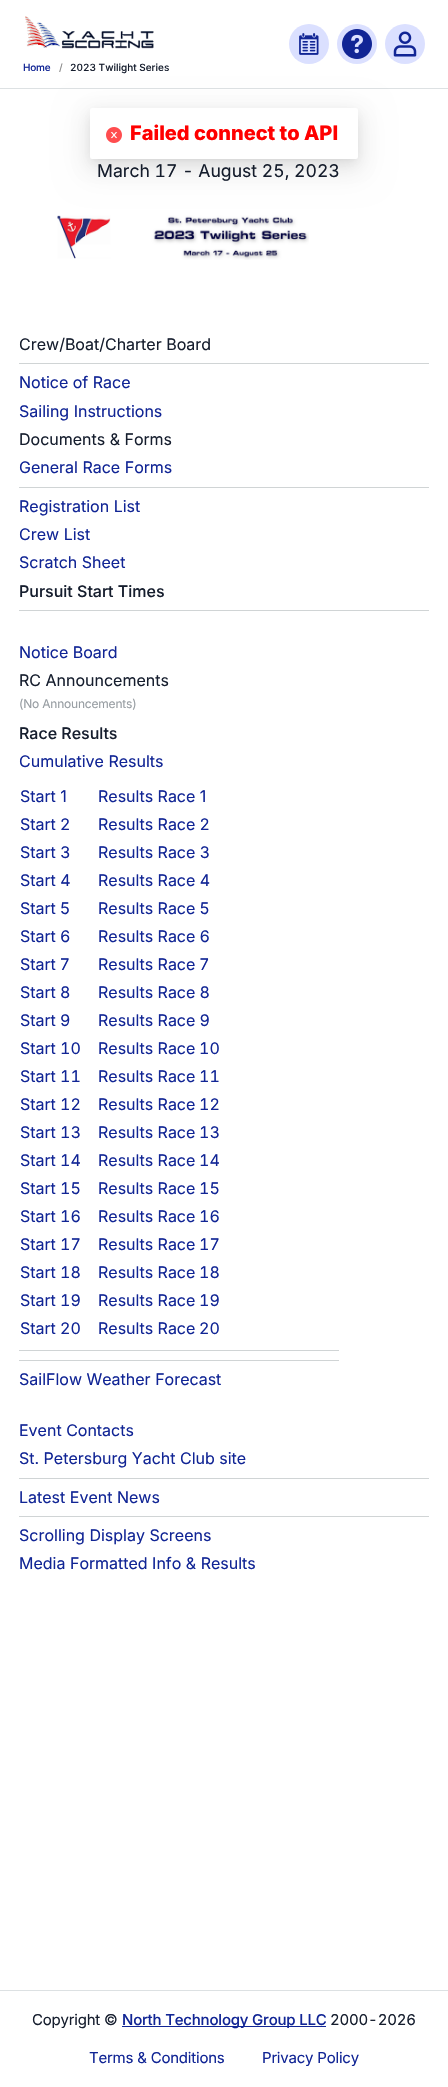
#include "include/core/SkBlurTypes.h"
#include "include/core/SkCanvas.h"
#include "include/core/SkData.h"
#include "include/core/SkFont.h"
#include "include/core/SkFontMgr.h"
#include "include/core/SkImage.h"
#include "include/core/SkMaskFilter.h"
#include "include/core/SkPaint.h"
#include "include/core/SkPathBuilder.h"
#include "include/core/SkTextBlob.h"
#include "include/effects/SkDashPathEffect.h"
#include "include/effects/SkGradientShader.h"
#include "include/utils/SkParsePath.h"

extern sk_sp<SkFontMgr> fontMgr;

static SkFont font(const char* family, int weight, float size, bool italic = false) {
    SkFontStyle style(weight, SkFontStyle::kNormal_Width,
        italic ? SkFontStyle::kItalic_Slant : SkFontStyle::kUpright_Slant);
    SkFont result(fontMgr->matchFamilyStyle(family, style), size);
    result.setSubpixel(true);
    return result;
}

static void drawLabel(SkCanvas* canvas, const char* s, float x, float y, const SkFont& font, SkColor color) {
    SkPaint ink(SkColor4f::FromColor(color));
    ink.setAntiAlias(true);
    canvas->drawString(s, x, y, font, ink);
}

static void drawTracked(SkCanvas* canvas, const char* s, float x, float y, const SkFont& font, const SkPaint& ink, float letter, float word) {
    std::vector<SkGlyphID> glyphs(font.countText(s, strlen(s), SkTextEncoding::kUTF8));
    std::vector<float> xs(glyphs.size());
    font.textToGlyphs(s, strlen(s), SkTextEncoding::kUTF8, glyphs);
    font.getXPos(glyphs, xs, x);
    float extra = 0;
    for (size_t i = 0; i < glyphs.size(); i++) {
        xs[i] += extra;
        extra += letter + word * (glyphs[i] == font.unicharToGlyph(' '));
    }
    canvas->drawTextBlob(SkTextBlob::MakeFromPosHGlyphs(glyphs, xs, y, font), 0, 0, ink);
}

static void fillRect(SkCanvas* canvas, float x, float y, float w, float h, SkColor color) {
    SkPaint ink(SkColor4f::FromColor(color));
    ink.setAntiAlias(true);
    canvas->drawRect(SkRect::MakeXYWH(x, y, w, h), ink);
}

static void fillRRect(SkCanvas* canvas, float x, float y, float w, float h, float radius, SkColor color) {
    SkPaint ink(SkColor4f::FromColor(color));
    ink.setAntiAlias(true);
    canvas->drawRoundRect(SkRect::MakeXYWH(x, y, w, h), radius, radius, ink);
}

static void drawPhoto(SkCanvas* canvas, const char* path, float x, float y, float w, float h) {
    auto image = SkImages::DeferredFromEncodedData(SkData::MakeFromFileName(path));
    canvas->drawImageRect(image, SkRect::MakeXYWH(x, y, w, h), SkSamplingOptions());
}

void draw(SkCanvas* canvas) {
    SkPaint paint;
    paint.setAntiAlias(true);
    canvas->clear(0xFFFFFFFF);
    fillRect(canvas, 0, 88, 448, 1, 0xFFDDE1E3);
    paint.setColor(0xFFDBE0FF);
    canvas->drawCircle(309, 44, 20, paint);
    drawPhoto(canvas, "assets/img1.png", 299, 33, 20, 22);
    canvas->drawCircle(357, 44, 20, paint);
    drawPhoto(canvas, "assets/img2.png", 342, 29, 30, 30);
    canvas->drawCircle(405, 44, 20, paint);
    drawPhoto(canvas, "assets/img3.png", 393, 31, 24, 26);
    drawPhoto(canvas, "assets/img4.png", 25, 16, 129, 33);
    SkFont font1 = font("Inter", 500, 10);
    paint.setColor(0xFF112595);
    drawTracked(canvas, "Home", 23, 71, font1, paint, -0.2f, 0);
    drawLabel(canvas, "/", 59, 71, font1, 0xFF8C8C8C);
    SkFont font2 = font("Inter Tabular", 500, 10);
    drawLabel(canvas, "2023 Twilight Series", 70, 71, font2, 0xFF161E2E);
    SkFont font3 = font("Inter Tabular", 400, 17.6f);
    drawLabel(canvas, "March 17 - August 25, 2023", 97, 177, font3, 0xFF161E2E);
    drawPhoto(canvas, "assets/img5.png", 57, 215, 252, 45);
    SkFont font4 = font("Inter", 400, 16);
    drawLabel(canvas, "Crew/Boat/Charter Board", 19, 350, font4, 0xFF161E2E);
    fillRect(canvas, 19, 363, 410, 1, 0xFFD0D4D5);
    drawLabel(canvas, "Notice of Race", 19, 388, font4, 0xFF112595);
    drawLabel(canvas, "Sailing Instructions", 19, 417, font4, 0xFF112595);
    drawLabel(canvas, "Documents & Forms", 19, 445, font4, 0xFF161E2E);
    drawLabel(canvas, "General Race Forms", 19, 473, font4, 0xFF112595);
    fillRect(canvas, 19, 487, 410, 1, 0xFFD0D4D5);
    drawLabel(canvas, "Registration List", 19, 512, font4, 0xFF112595);
    drawLabel(canvas, "Crew List", 19, 540, font4, 0xFF112595);
    drawLabel(canvas, "Scratch Sheet", 19, 568, font4, 0xFF112595);
    SkFont font5 = font("Inter", 500, 16);
    drawLabel(canvas, "Pursuit Start Times", 19, 597, font5, 0xFF161E2E);
    fillRect(canvas, 19, 610, 410, 1, 0xFFD0D4D5);
    drawLabel(canvas, "Notice Board", 19, 658, font4, 0xFF112595);
    drawLabel(canvas, "RC Announcements", 19, 686, font4, 0xFF161E2E);
    SkFont font6 = font("Inter", 400, 12);
    paint.setColor(0xFF979DA2);
    drawTracked(canvas, "(No Announcements)", 19, 708, font6, paint, -0.2f, 0);
    drawLabel(canvas, "Race Results", 19, 739, font5, 0xFF161E2E);
    drawLabel(canvas, "Cumulative Results", 19, 767, font4, 0xFF112595);
    drawLabel(canvas, "Start 1", 20, 802, font4, 0xFF112595);
    drawLabel(canvas, "Results Race 1", 98, 802, font4, 0xFF112595);
    drawLabel(canvas, "Start 2", 20, 830, font4, 0xFF112595);
    drawLabel(canvas, "Results Race 2", 98, 830, font4, 0xFF112595);
    drawLabel(canvas, "Start 3", 20, 858, font4, 0xFF112595);
    drawLabel(canvas, "Results Race 3", 98, 858, font4, 0xFF112595);
    drawLabel(canvas, "Start 4", 20, 886, font4, 0xFF112595);
    drawLabel(canvas, "Results Race 4", 98, 886, font4, 0xFF112595);
    drawLabel(canvas, "Start 5", 20, 914, font4, 0xFF112595);
    drawLabel(canvas, "Results Race 5", 98, 914, font4, 0xFF112595);
    drawLabel(canvas, "Start 6", 20, 942, font4, 0xFF112595);
    drawLabel(canvas, "Results Race 6", 98, 942, font4, 0xFF112595);
    drawLabel(canvas, "Start 7", 20, 970, font4, 0xFF112595);
    drawLabel(canvas, "Results Race 7", 98, 970, font4, 0xFF112595);
    drawLabel(canvas, "Start 8", 20, 998, font4, 0xFF112595);
    drawLabel(canvas, "Results Race 8", 98, 998, font4, 0xFF112595);
    drawLabel(canvas, "Start 9", 20, 1026, font4, 0xFF112595);
    drawLabel(canvas, "Results Race 9", 98, 1026, font4, 0xFF112595);
    drawLabel(canvas, "Start", 20, 1054, font4, 0xFF112595);
    SkFont font7 = font("Inter Tabular", 400, 16);
    drawLabel(canvas, "10", 60, 1054, font7, 0xFF112595);
    drawLabel(canvas, "Results Race", 98, 1054, font4, 0xFF112595);
    drawLabel(canvas, "10", 199, 1054, font7, 0xFF112595);
    drawLabel(canvas, "Start", 20, 1082, font4, 0xFF112595);
    drawLabel(canvas, "11", 60, 1082, font7, 0xFF112595);
    drawLabel(canvas, "Results Race", 98, 1082, font4, 0xFF112595);
    drawLabel(canvas, "11", 199, 1082, font7, 0xFF112595);
    drawLabel(canvas, "Start", 20, 1110, font4, 0xFF112595);
    drawLabel(canvas, "12", 60, 1110, font7, 0xFF112595);
    drawLabel(canvas, "Results Race", 98, 1110, font4, 0xFF112595);
    drawLabel(canvas, "12", 199, 1110, font7, 0xFF112595);
    drawLabel(canvas, "Start", 20, 1138, font4, 0xFF112595);
    drawLabel(canvas, "13", 60, 1138, font7, 0xFF112595);
    drawLabel(canvas, "Results Race", 98, 1138, font4, 0xFF112595);
    drawLabel(canvas, "13", 199, 1138, font7, 0xFF112595);
    drawLabel(canvas, "Start", 20, 1166, font4, 0xFF112595);
    drawLabel(canvas, "14", 60, 1166, font7, 0xFF112595);
    drawLabel(canvas, "Results Race", 98, 1166, font4, 0xFF112595);
    drawLabel(canvas, "14", 199, 1166, font7, 0xFF112595);
    drawLabel(canvas, "Start", 20, 1194, font4, 0xFF112595);
    drawLabel(canvas, "15", 60, 1194, font7, 0xFF112595);
    drawLabel(canvas, "Results Race", 98, 1194, font4, 0xFF112595);
    drawLabel(canvas, "15", 199, 1194, font7, 0xFF112595);
    drawLabel(canvas, "Start", 20, 1222, font4, 0xFF112595);
    drawLabel(canvas, "16", 60, 1222, font7, 0xFF112595);
    drawLabel(canvas, "Results Race", 98, 1222, font4, 0xFF112595);
    drawLabel(canvas, "16", 199, 1222, font7, 0xFF112595);
    drawLabel(canvas, "Start", 20, 1250, font4, 0xFF112595);
    drawLabel(canvas, "17", 60, 1250, font7, 0xFF112595);
    drawLabel(canvas, "Results Race", 98, 1250, font4, 0xFF112595);
    drawLabel(canvas, "17", 199, 1250, font7, 0xFF112595);
    drawLabel(canvas, "Start", 20, 1278, font4, 0xFF112595);
    drawLabel(canvas, "18", 60, 1278, font7, 0xFF112595);
    drawLabel(canvas, "Results Race", 98, 1278, font4, 0xFF112595);
    drawLabel(canvas, "18", 199, 1278, font7, 0xFF112595);
    drawLabel(canvas, "Start", 20, 1306, font4, 0xFF112595);
    drawLabel(canvas, "19", 60, 1306, font7, 0xFF112595);
    drawLabel(canvas, "Results Race", 98, 1306, font4, 0xFF112595);
    drawLabel(canvas, "19", 199, 1306, font7, 0xFF112595);
    drawLabel(canvas, "Start", 20, 1334, font4, 0xFF112595);
    drawLabel(canvas, "20", 60, 1334, font7, 0xFF112595);
    drawLabel(canvas, "Results Race", 98, 1334, font4, 0xFF112595);
    drawLabel(canvas, "20", 199, 1334, font7, 0xFF112595);
    fillRect(canvas, 19, 1350, 320, 1, 0xFFD0D4D5);
    fillRect(canvas, 19, 1360, 320, 1, 0xFFD0D4D5);
    drawLabel(canvas, "SailFlow Weather Forecast", 19, 1385, font4, 0xFF112595);
    drawLabel(canvas, "Event Contacts", 19, 1436, font4, 0xFF112595);
    drawLabel(canvas, "St. Petersburg Yacht Club site", 19, 1464, font4, 0xFF112595);
    fillRect(canvas, 19, 1478, 410, 1, 0xFFD0D4D5);
    drawLabel(canvas, "Latest Event News", 19, 1503, font4, 0xFF112595);
    fillRect(canvas, 19, 1516, 410, 1, 0xFFD0D4D5);
    drawLabel(canvas, "Scrolling Display Screens", 19, 1541, font4, 0xFF112595);
    drawLabel(canvas, "Media Formatted Info & Results", 19, 1569, font4, 0xFF112595);
    fillRect(canvas, 0, 1990, 448, 1, 0xFFDDE1E3);
    SkFont font8 = font("Inter", 400, 15);
    paint.setColor(0xFF161E2E);
    drawTracked(canvas, "Copyright ©", 32, 2025, font8, paint, -0.2f, 0);
    fillRect(canvas, 122, 2026, 204, 1, 0xFF112595);
    SkFont font9 = font("Inter", 500, 15);
    paint.setColor(0xFF112595);
    drawTracked(canvas, "North Technology Group LLC", 122, 2025, font9, paint, -0.2f, 0);
    SkFont font10 = font("Inter Tabular", 400, 15);
    paint.setColor(0xFF161E2E);
    drawTracked(canvas, "2000-2026", 330, 2025, font10, paint, -0.2f, 0);
    paint.setColor(0xFF112595);
    drawTracked(canvas, "Terms & Conditions", 89, 2063, font8, paint, -0.2f, 0);
    drawTracked(canvas, "Privacy Policy", 262, 2063, font8, paint, -0.2f, 0);
    paint.setColor(0x0D000000);
    paint.setMaskFilter(SkMaskFilter::MakeBlur(kNormal_SkBlurStyle, 14));
    canvas->drawRoundRect(SkRect::MakeXYWH(82, 109, 284, 67), 10, 10, paint);
    paint.setMaskFilter(nullptr);
    paint.setColor(0x14000000);
    paint.setMaskFilter(SkMaskFilter::MakeBlur(kNormal_SkBlurStyle, 8));
    canvas->drawRoundRect(SkRect::MakeXYWH(90, 114, 268, 51), 2, 2, paint);
    paint.setMaskFilter(nullptr);
    paint.setColor(0x1F000000);
    paint.setMaskFilter(SkMaskFilter::MakeBlur(kNormal_SkBlurStyle, 3));
    canvas->drawRect(SkRect::MakeXYWH(94, 115, 260, 43), paint);
    paint.setMaskFilter(nullptr);
    fillRRect(canvas, 90, 108, 268, 51, 2, 0xFFFFFFFF);
    drawPhoto(canvas, "assets/img6.png", 106, 127, 16, 16);
    SkFont font11 = font("Inter", 800, 20);
    drawLabel(canvas, "Failed connect to API", 130, 140, font11, 0xFFFF0000);
}
